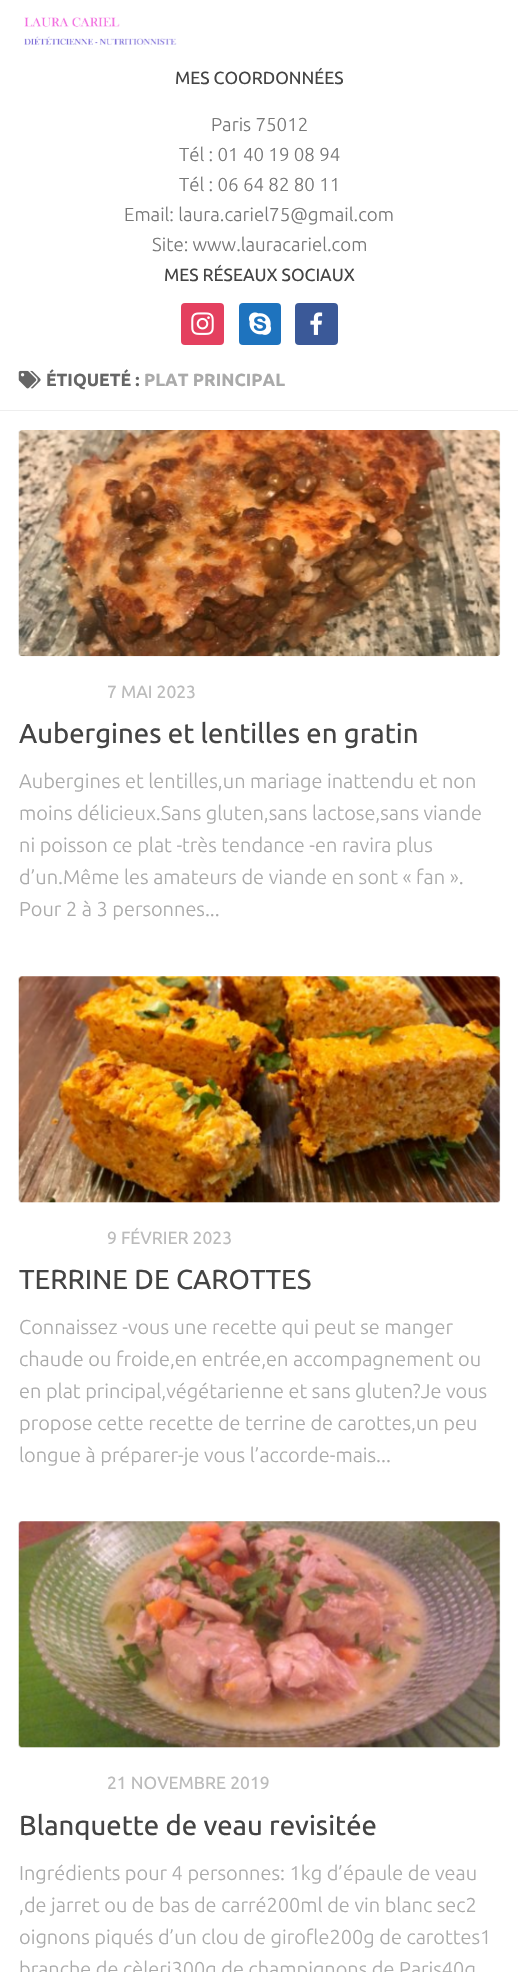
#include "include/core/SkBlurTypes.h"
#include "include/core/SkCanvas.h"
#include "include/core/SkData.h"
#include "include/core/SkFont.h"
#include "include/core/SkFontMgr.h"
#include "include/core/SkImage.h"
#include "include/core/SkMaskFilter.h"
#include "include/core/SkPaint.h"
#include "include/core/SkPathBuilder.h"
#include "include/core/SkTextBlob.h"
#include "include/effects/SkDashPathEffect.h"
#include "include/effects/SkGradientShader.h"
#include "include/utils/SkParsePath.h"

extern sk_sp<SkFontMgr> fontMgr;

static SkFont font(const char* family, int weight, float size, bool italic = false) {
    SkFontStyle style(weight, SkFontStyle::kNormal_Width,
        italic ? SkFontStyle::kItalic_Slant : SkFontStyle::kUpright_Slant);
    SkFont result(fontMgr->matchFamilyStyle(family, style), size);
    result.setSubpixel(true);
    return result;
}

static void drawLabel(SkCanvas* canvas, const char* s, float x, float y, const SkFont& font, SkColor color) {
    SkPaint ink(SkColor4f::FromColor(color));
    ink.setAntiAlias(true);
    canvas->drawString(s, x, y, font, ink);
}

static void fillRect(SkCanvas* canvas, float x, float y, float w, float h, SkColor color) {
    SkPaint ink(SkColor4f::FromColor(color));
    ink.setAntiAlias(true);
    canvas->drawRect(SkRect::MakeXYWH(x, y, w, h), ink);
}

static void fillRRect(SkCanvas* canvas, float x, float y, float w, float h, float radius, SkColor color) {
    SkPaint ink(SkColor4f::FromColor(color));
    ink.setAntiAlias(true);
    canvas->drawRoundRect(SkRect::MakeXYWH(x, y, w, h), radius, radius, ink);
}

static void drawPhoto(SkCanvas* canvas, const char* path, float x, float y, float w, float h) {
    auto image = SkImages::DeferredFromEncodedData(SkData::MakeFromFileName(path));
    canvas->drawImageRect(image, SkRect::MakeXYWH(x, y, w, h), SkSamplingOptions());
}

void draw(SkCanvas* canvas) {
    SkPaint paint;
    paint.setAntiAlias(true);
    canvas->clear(0xFFFFFFFF);
    drawPhoto(canvas, "assets/img1.png", 24, 17, 153, 28);
    SkFont font1 = font("Ubuntu", 400, 17.5f);
    drawLabel(canvas, "MES COORDONNÉES", 175, 84, font1, 0xFF444444);
    SkFont font2 = font("Ubuntu", 300, 18.75f);
    drawLabel(canvas, "Paris 75012", 211, 131, font2, 0xFF777777);
    drawLabel(canvas, "Tél : 01 40 19 08 94", 179, 161, font2, 0xFF777777);
    drawLabel(canvas, "Tél : 06 64 82 80 11", 179, 191, font2, 0xFF777777);
    drawLabel(canvas, "Email: laura.cariel75@gmail.com", 124, 221, font2, 0xFF777777);
    drawLabel(canvas, "Site: www.lauracariel.com", 152, 251, font2, 0xFF777777);
    drawLabel(canvas, "MES RÉSEAUX SOCIAUX", 164, 281, font1, 0xFF444444);
    fillRRect(canvas, 181, 303, 43, 42, 4, 0xFFE4405F);
    drawPhoto(canvas, "assets/img2.png", 191, 312, 23, 23);
    fillRRect(canvas, 239, 303, 42, 42, 4, 0xFF1E73BE);
    drawPhoto(canvas, "assets/img3.png", 248, 312, 24, 23);
    fillRRect(canvas, 295, 303, 43, 42, 4, 0xFF3B5998);
    drawPhoto(canvas, "assets/img4.png", 310, 312, 13, 23);
    fillRect(canvas, 0, 410, 518, 1, 0xFFEEEEEE);
    drawPhoto(canvas, "assets/img5.png", 18, 370, 23, 19);
    SkFont font3 = font("Ubuntu", 700, 17.5f);
    drawLabel(canvas, "ÉTIQUETÉ :", 46, 386, font3, 0xFF666666);
    drawLabel(canvas, "PLAT PRINCIPAL", 144, 386, font3, 0xFFAAAAAA);
    drawPhoto(canvas, "assets/img6.png", 18, 430, 483, 227);
    drawLabel(canvas, "7 MAI 2023", 107, 698, font1, 0xFFBBBBBB);
    SkFont font4 = font("Ubuntu", 400, 27.5f);
    drawLabel(canvas, "Aubergines et lentilles en gratin", 19, 743, font4, 0xFF444444);
    SkFont font5 = font("Ubuntu", 300, 20);
    drawLabel(canvas, "Aubergines et lentilles,un mariage inattendu et non", 19, 788, font5, 0xFFAAAAAA);
    drawLabel(canvas, "moins délicieux.Sans gluten,sans lactose,sans viande", 19, 820, font5, 0xFFAAAAAA);
    drawLabel(canvas, "ni poisson ce plat -très tendance -en ravira plus", 19, 852, font5, 0xFFAAAAAA);
    drawLabel(canvas, "d’un.Même les amateurs de viande en sont « fan ».", 19, 884, font5, 0xFFAAAAAA);
    drawLabel(canvas, "Pour 2 à 3 personnes...", 19, 916, font5, 0xFFAAAAAA);
    drawPhoto(canvas, "assets/img7.png", 18, 976, 483, 227);
    drawLabel(canvas, "9 FÉVRIER 2023", 107, 1244, font1, 0xFFBBBBBB);
    drawLabel(canvas, "TERRINE DE CAROTTES", 19, 1289, font4, 0xFF444444);
    drawLabel(canvas, "Connaissez -vous une recette qui peut se manger", 19, 1334, font5, 0xFFAAAAAA);
    drawLabel(canvas, "chaude ou froide,en entrée,en accompagnement ou", 19, 1366, font5, 0xFFAAAAAA);
    drawLabel(canvas, "en plat principal,végétarienne et sans gluten?Je vous", 19, 1398, font5, 0xFFAAAAAA);
    drawLabel(canvas, "propose cette recette de terrine de carottes,un peu", 19, 1430, font5, 0xFFAAAAAA);
    drawLabel(canvas, "longue à préparer-je vous l’accorde-mais...", 19, 1462, font5, 0xFFAAAAAA);
    drawPhoto(canvas, "assets/img8.png", 18, 1521, 483, 227);
    drawLabel(canvas, "21 NOVEMBRE 2019", 107, 1789, font1, 0xFFBBBBBB);
    drawLabel(canvas, "Blanquette de veau revisitée", 19, 1835, font4, 0xFF444444);
    drawLabel(canvas, "Ingrédients pour 4 personnes: 1kg d’épaule de veau", 19, 1880, font5, 0xFFAAAAAA);
    drawLabel(canvas, ",de jarret ou de bas de carré200ml de vin blanc sec2", 19, 1912, font5, 0xFFAAAAAA);
    drawLabel(canvas, "oignons piqués d’un clou de girofle200g de carottes1", 19, 1944, font5, 0xFFAAAAAA);
    drawLabel(canvas, "branche de cèleri300g de champignons de Paris40g", 19, 1976, font5, 0xFFAAAAAA);
}
